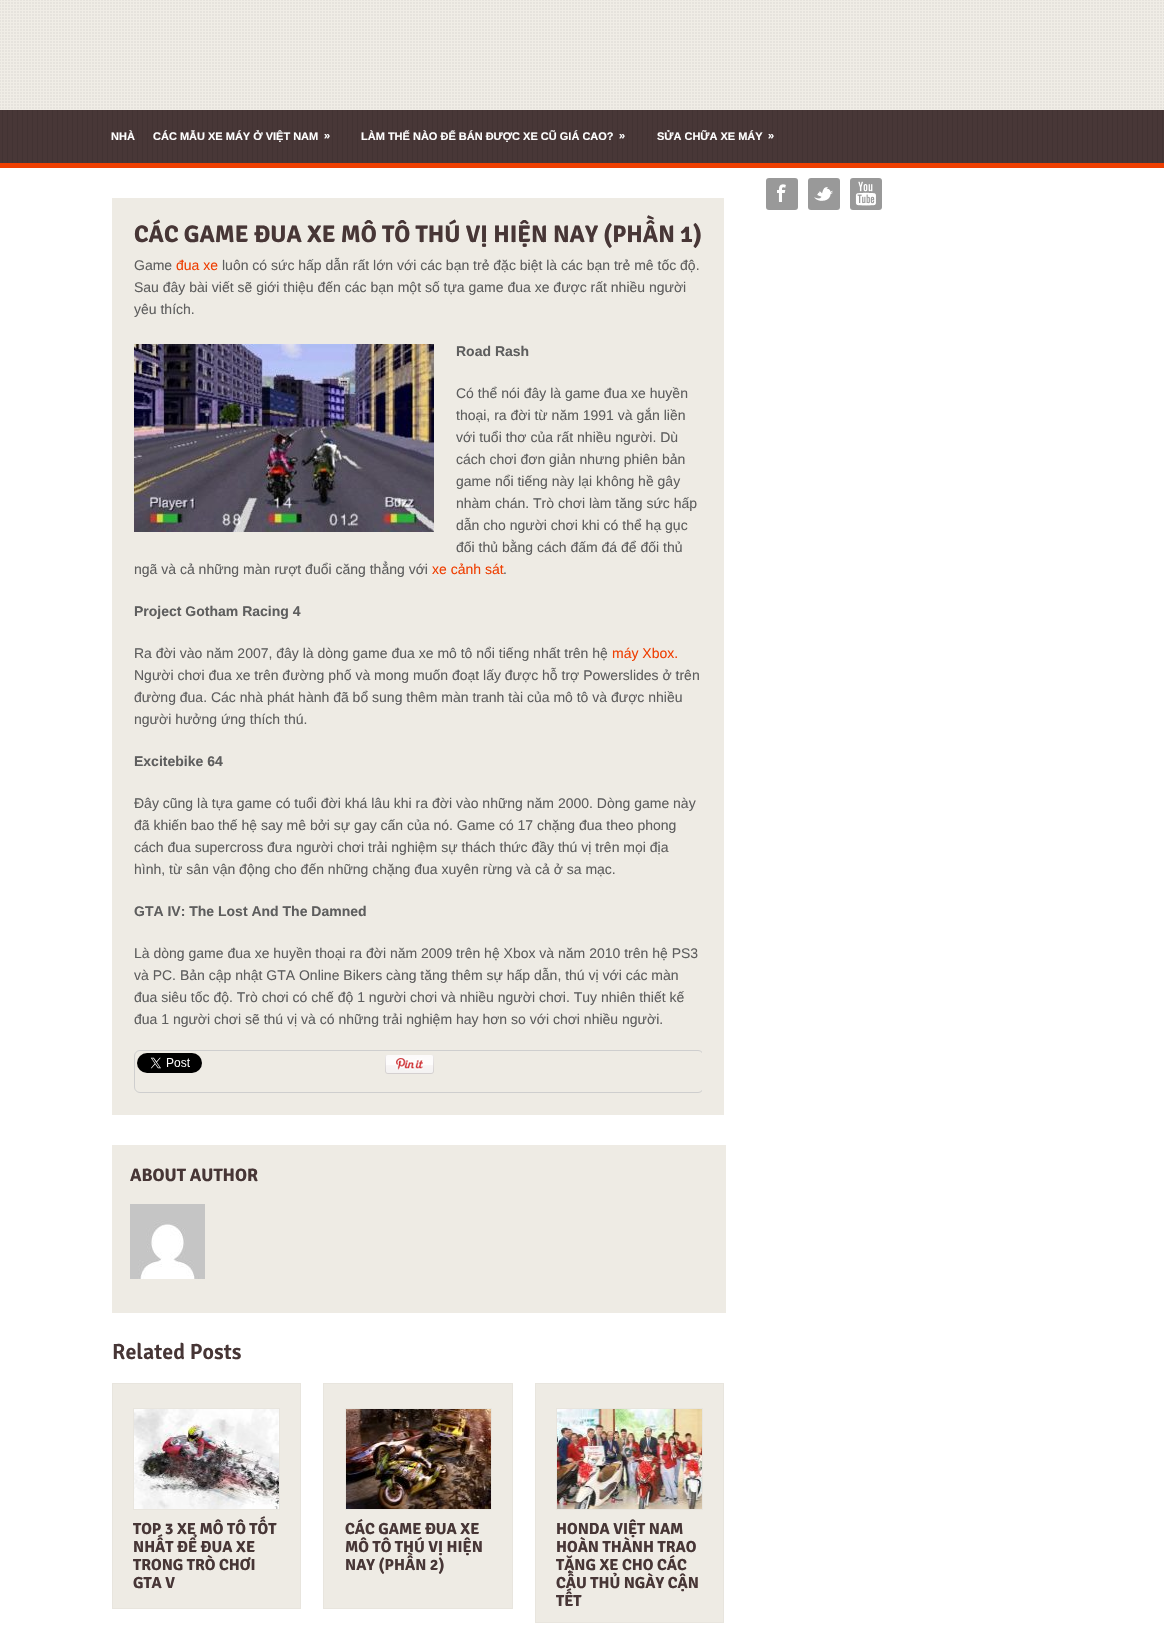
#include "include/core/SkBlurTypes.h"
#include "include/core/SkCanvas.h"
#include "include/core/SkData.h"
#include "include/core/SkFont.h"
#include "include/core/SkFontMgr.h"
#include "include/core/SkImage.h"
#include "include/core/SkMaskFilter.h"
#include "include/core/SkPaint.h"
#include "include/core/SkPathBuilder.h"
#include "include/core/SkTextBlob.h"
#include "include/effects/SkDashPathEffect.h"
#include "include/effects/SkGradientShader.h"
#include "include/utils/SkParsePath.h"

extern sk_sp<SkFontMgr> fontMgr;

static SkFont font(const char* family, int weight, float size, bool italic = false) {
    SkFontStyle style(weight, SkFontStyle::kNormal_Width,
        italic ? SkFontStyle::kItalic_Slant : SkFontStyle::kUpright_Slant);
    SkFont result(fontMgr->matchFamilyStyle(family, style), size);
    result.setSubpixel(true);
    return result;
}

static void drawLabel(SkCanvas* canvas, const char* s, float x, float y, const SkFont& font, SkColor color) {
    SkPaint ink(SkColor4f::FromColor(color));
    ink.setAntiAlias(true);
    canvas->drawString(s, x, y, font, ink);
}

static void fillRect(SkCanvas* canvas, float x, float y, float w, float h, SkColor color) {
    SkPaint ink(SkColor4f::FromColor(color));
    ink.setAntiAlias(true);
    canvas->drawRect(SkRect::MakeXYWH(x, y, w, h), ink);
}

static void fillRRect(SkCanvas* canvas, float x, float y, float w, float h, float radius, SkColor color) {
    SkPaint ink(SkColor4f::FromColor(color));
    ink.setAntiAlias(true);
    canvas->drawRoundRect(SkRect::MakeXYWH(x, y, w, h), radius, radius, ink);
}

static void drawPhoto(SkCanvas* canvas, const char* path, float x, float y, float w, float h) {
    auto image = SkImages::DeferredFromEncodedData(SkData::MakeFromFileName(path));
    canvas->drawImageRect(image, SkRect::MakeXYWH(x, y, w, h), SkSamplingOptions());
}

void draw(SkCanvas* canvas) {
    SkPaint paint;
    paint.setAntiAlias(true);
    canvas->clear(0xFFFFFFFF);
    fillRect(canvas, 0, 0, 1164, 110, 0xFFF0EDE6);
    drawPhoto(canvas, "assets/img1.png", 0, 0, 1164, 109);
    fillRect(canvas, 0, 110, 1164, 53, 0xFF483737);
    drawPhoto(canvas, "assets/img2.png", 2, 110, 1161, 53);
    fillRect(canvas, 0, 163, 1164, 5, 0xFFEE3F02);
    SkFont font1 = font("Liberation Sans", 700, 11);
    drawLabel(canvas, "NHÀ", 111, 140, font1, 0xFFFFFFFF);
    drawLabel(canvas, "CÁC MẪU XE MÁY Ở VIỆT NAM", 153, 140, font1, 0xFFFFFFFF);
    drawLabel(canvas, "»", 324, 139, font1, 0xFFFFFFFF);
    drawLabel(canvas, "LÀM THẾ NÀO ĐỂ BÁN ĐƯỢC XE CŨ GIÁ CAO?", 361, 140, font1, 0xFFFFFFFF);
    drawLabel(canvas, "»", 619, 139, font1, 0xFFFFFFFF);
    drawLabel(canvas, "SỬA CHỮA XE MÁY", 657, 140, font1, 0xFFFFFFFF);
    drawLabel(canvas, "»", 768, 139, font1, 0xFFFFFFFF);
    fillRRect(canvas, 766, 178, 32, 32, 3, 0xFF999999);
    drawPhoto(canvas, "assets/img3.png", 777, 184, 9, 18);
    fillRRect(canvas, 808, 178, 32, 32, 3, 0xFF999999);
    drawPhoto(canvas, "assets/img4.png", 814, 187, 19, 14);
    fillRRect(canvas, 850, 178, 32, 32, 3, 0xFF999999);
    drawPhoto(canvas, "assets/img5.png", 855, 181, 21, 25);
    fillRect(canvas, 112, 198, 612, 917, 0xFFEEEBE4);
    SkFont font2 = font("Signika", 700, 24);
    drawLabel(canvas, "CÁC GAME ĐUA XE MÔ TÔ THÚ VỊ HIỆN NAY (PHẦN 1)", 134, 242, font2, 0xFF473636);
    SkFont font3 = font("Liberation Sans", 400, 14);
    drawLabel(canvas, "Game", 134, 270, font3, 0xFF5E5E5E);
    drawLabel(canvas, "đua xe", 176, 270, font3, 0xFFEE3F02);
    drawLabel(canvas, "luôn có sức hấp dẫn rất lớn với các bạn trẻ đặc biệt là các bạn trẻ mê tốc độ.", 222, 270, font3, 0xFF5E5E5E);
    drawLabel(canvas, "Sau đây bài viết sẽ giới thiệu đến các bạn một số tựa game đua xe được rất nhiều người", 134, 292, font3, 0xFF5E5E5E);
    drawLabel(canvas, "yêu thích.", 134, 314, font3, 0xFF5E5E5E);
    drawPhoto(canvas, "assets/img6.png", 134, 344, 300, 188);
    SkFont font4 = font("Liberation Sans", 700, 14);
    drawLabel(canvas, "Road Rash", 456, 356, font4, 0xFF5E5E5E);
    drawLabel(canvas, "Có thể nói đây là game đua xe huyền", 456, 398, font3, 0xFF5E5E5E);
    drawLabel(canvas, "thoại, ra đời từ năm 1991 và gắn liền", 456, 420, font3, 0xFF5E5E5E);
    drawLabel(canvas, "với tuổi thơ của rất nhiều người. Dù", 456, 442, font3, 0xFF5E5E5E);
    drawLabel(canvas, "cách chơi đơn giản nhưng phiên bản", 456, 464, font3, 0xFF5E5E5E);
    drawLabel(canvas, "game nổi tiếng này lại không hề gây", 456, 486, font3, 0xFF5E5E5E);
    drawLabel(canvas, "nhàm chán. Trò chơi làm tăng sức hấp", 456, 508, font3, 0xFF5E5E5E);
    drawLabel(canvas, "dẫn cho người chơi khi có thể hạ gục", 456, 530, font3, 0xFF5E5E5E);
    drawLabel(canvas, "đối thủ bằng cách đấm đá để đối thủ", 456, 552, font3, 0xFF5E5E5E);
    drawLabel(canvas, "ngã và cả những màn rượt đuổi căng thẳng với", 134, 574, font3, 0xFF5E5E5E);
    drawLabel(canvas, "xe cảnh sát", 432, 574, font3, 0xFFEE3F02);
    drawLabel(canvas, ".", 503, 574, font3, 0xFF5E5E5E);
    drawLabel(canvas, "Project Gotham Racing 4", 134, 616, font4, 0xFF5E5E5E);
    drawLabel(canvas, "Ra đời vào năm 2007, đây là dòng game đua xe mô tô nổi tiếng nhất trên hệ", 134, 658, font3, 0xFF5E5E5E);
    drawLabel(canvas, "máy Xbox.", 612, 658, font3, 0xFFEE3F02);
    drawLabel(canvas, "Người chơi đua xe trên đường phố và mong muốn đoạt lấy được hỗ trợ Powerslides ở trên", 134, 680, font3, 0xFF5E5E5E);
    drawLabel(canvas, "đường đua. Các nhà phát hành đã bổ sung thêm màn tranh tài của mô tô và được nhiều", 134, 702, font3, 0xFF5E5E5E);
    drawLabel(canvas, "người hưởng ứng thích thú.", 134, 724, font3, 0xFF5E5E5E);
    drawLabel(canvas, "Excitebike 64", 134, 766, font4, 0xFF5E5E5E);
    drawLabel(canvas, "Đây cũng là tựa game có tuổi đời khá lâu khi ra đời vào những năm 2000. Dòng game này", 134, 808, font3, 0xFF5E5E5E);
    drawLabel(canvas, "đã khiến bao thế hệ say mê bởi sự gay cấn của nó. Game có 17 chặng đua theo phong", 134, 830, font3, 0xFF5E5E5E);
    drawLabel(canvas, "cách đua supercross đưa người chơi trải nghiệm sự thách thức đầy thú vị trên mọi địa", 134, 852, font3, 0xFF5E5E5E);
    drawLabel(canvas, "hình, từ sân vận động cho đến những chặng đua xuyên rừng và cả ở sa mạc.", 134, 874, font3, 0xFF5E5E5E);
    drawLabel(canvas, "GTA IV: The Lost And The Damned", 134, 916, font4, 0xFF5E5E5E);
    drawLabel(canvas, "Là dòng game đua xe huyền thoại ra đời năm 2009 trên hệ Xbox và năm 2010 trên hệ PS3", 134, 958, font3, 0xFF5E5E5E);
    drawLabel(canvas, "và PC. Bản cập nhật GTA Online Bikers càng tăng thêm sự hấp dẫn, thú vị với các màn", 134, 980, font3, 0xFF5E5E5E);
    drawLabel(canvas, "đua siêu tốc độ. Trò chơi có chế độ 1 người chơi và nhiều người chơi. Tuy nhiên thiết kế", 134, 1002, font3, 0xFF5E5E5E);
    drawLabel(canvas, "đua 1 người chơi sẽ thú vị và có những trải nghiệm hay hơn so với chơi nhiều người.", 134, 1024, font3, 0xFF5E5E5E);
    canvas->save();
    canvas->clipRect(SkRect::MakeXYWH(134, 254, 568, 839));
    paint.setStroke(true);
    paint.setStrokeWidth(1);
    paint.setColor(0xFFCECECE);
    canvas->drawRoundRect(SkRect::MakeXYWH(134.5f, 1050.5f, 569, 42), 5.5f, 5.5f, paint);
    canvas->restore();
    drawPhoto(canvas, "assets/img7.png", 137, 1053, 65, 20);
    drawPhoto(canvas, "assets/img8.png", 385, 1055, 49, 19);
    fillRect(canvas, 112, 1145, 614, 168, 0xFFEEEBE4);
    SkFont font5 = font("Signika", 700, 18);
    drawLabel(canvas, "ABOUT AUTHOR", 130, 1181, font5, 0xFF473636);
    drawPhoto(canvas, "assets/img9.png", 130, 1204, 75, 75);
    SkFont font6 = font("Signika", 600, 22);
    drawLabel(canvas, "Related Posts", 112, 1359, font6, 0xFF473636);
    paint.setStroke(false);
    paint.setColor(0xFFEEEBE4);
    canvas->drawRect(SkRect::MakeXYWH(112.5f, 1383.5f, 188, 225), paint);
    paint.setStroke(true);
    paint.setColor(0xFFE8E5DE);
    canvas->drawRect(SkRect::MakeXYWH(112.5f, 1383.5f, 188, 225), paint);
    canvas->drawRect(SkRect::MakeXYWH(133.5f, 1408.5f, 146, 101), paint);
    drawPhoto(canvas, "assets/img10.png", 134, 1409, 145, 100);
    SkFont font7 = font("Signika", 700, 16);
    drawLabel(canvas, "TOP 3 XE MÔ TÔ TỐT", 133, 1534, font7, 0xFF473636);
    drawLabel(canvas, "NHẤT ĐỂ ĐUA XE", 133, 1552, font7, 0xFF473636);
    drawLabel(canvas, "TRONG TRÒ CHƠI", 133, 1570, font7, 0xFF473636);
    drawLabel(canvas, "GTA V", 133, 1588, font7, 0xFF473636);
    paint.setStroke(false);
    paint.setColor(0xFFEEEBE4);
    canvas->drawRect(SkRect::MakeXYWH(323.5f, 1383.5f, 189, 225), paint);
    paint.setStroke(true);
    paint.setColor(0xFFE8E5DE);
    canvas->drawRect(SkRect::MakeXYWH(323.5f, 1383.5f, 189, 225), paint);
    canvas->drawRect(SkRect::MakeXYWH(345.5f, 1408.5f, 146, 101), paint);
    drawPhoto(canvas, "assets/img11.png", 346, 1409, 145, 100);
    drawLabel(canvas, "CÁC GAME ĐUA XE", 345, 1534, font7, 0xFF473636);
    drawLabel(canvas, "MÔ TÔ THÚ VỊ HIỆN", 345, 1552, font7, 0xFF473636);
    drawLabel(canvas, "NAY (PHẦN 2)", 345, 1570, font7, 0xFF473636);
    paint.setStroke(false);
    paint.setColor(0xFFEEEBE4);
    canvas->drawRect(SkRect::MakeXYWH(535.5f, 1383.5f, 188, 239), paint);
    paint.setStroke(true);
    paint.setColor(0xFFE8E5DE);
    canvas->drawRect(SkRect::MakeXYWH(535.5f, 1383.5f, 188, 239), paint);
    canvas->drawRect(SkRect::MakeXYWH(556.5f, 1408.5f, 146, 101), paint);
    drawPhoto(canvas, "assets/img12.png", 557, 1409, 145, 100);
    drawLabel(canvas, "HONDA VIỆT NAM", 556, 1534, font7, 0xFF473636);
    drawLabel(canvas, "HOÀN THÀNH TRAO", 556, 1552, font7, 0xFF473636);
    drawLabel(canvas, "TẶNG XE CHO CÁC", 556, 1570, font7, 0xFF473636);
    drawLabel(canvas, "CẦU THỦ NGÀY CẬN", 556, 1588, font7, 0xFF473636);
    drawLabel(canvas, "TẾT", 556, 1606, font7, 0xFF473636);
}
